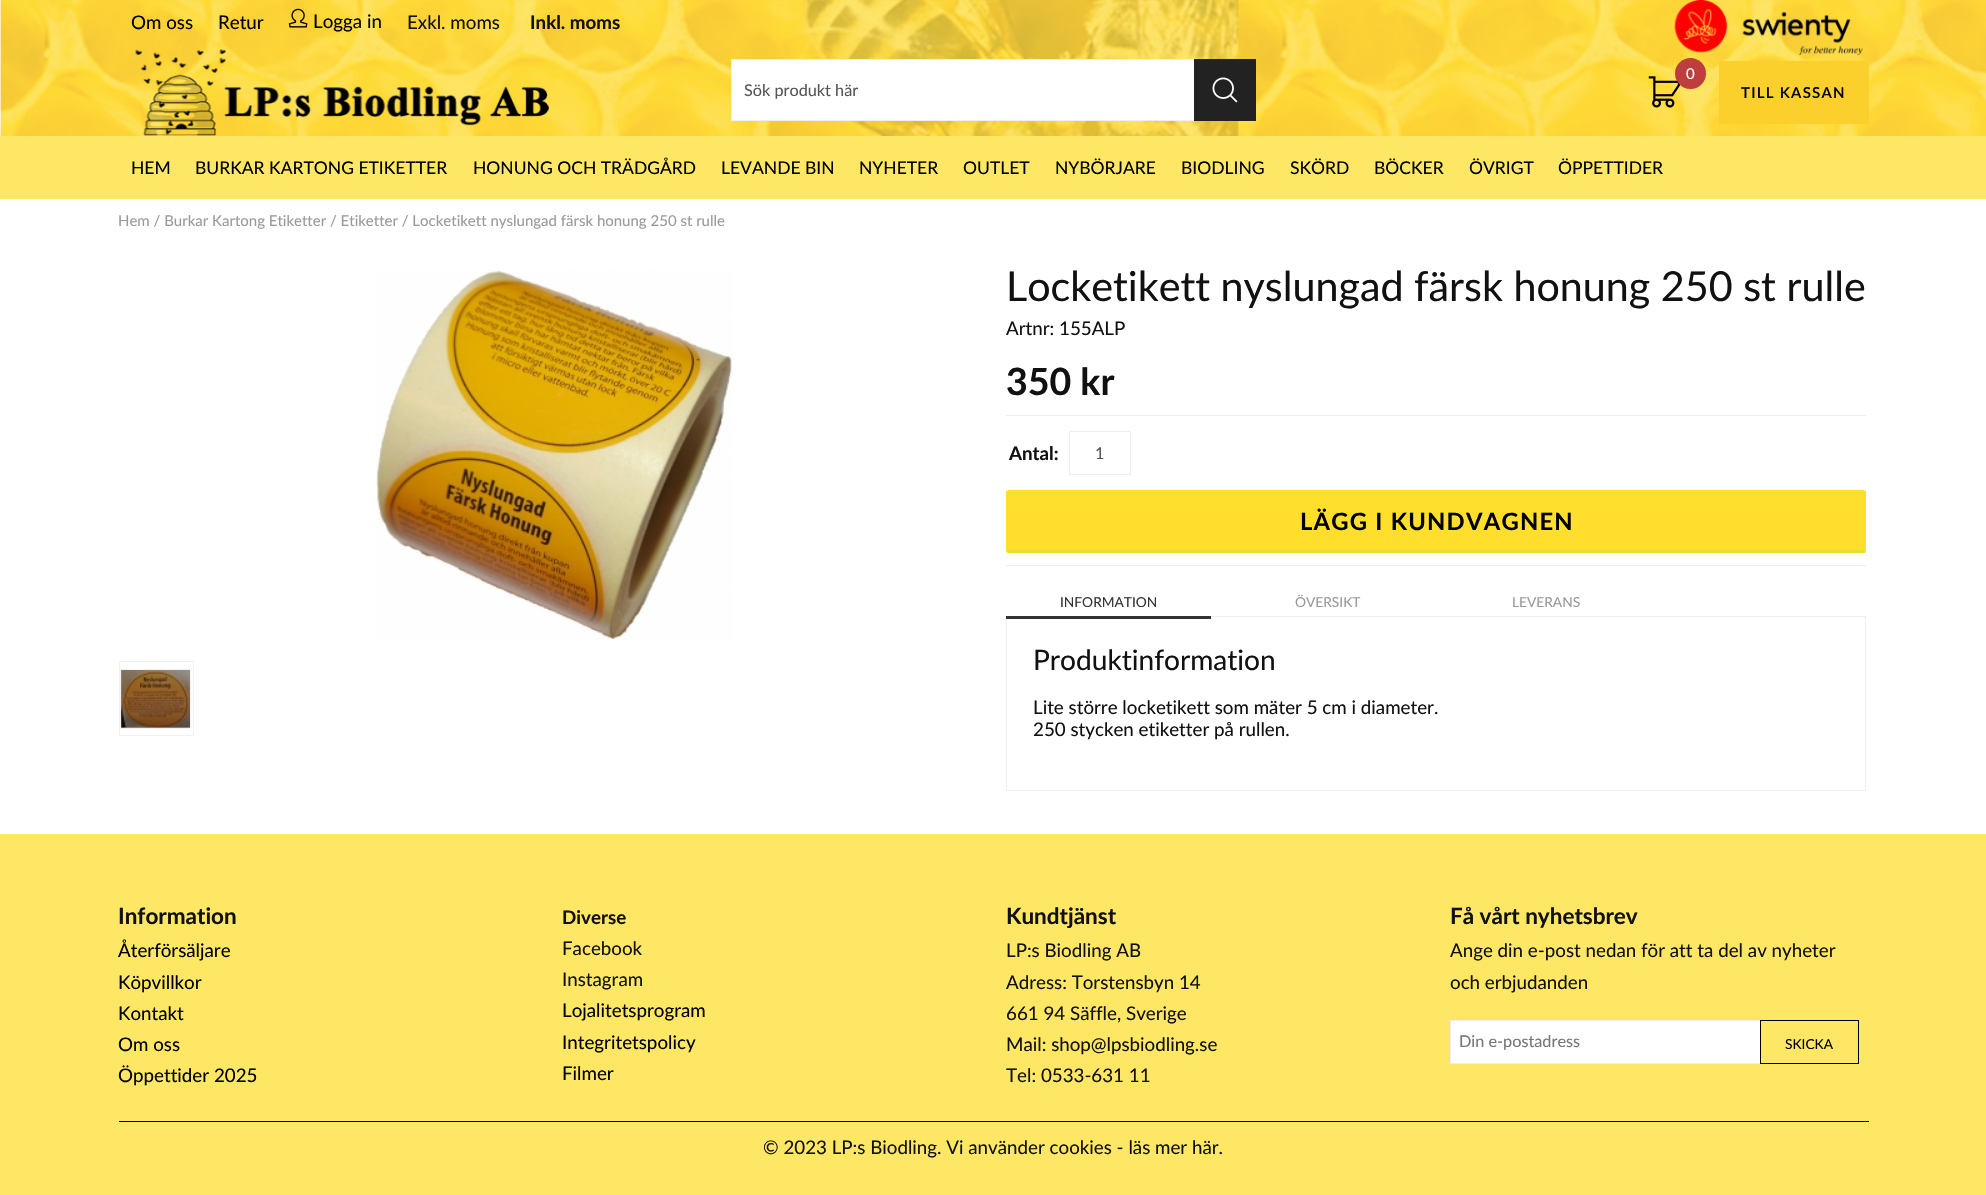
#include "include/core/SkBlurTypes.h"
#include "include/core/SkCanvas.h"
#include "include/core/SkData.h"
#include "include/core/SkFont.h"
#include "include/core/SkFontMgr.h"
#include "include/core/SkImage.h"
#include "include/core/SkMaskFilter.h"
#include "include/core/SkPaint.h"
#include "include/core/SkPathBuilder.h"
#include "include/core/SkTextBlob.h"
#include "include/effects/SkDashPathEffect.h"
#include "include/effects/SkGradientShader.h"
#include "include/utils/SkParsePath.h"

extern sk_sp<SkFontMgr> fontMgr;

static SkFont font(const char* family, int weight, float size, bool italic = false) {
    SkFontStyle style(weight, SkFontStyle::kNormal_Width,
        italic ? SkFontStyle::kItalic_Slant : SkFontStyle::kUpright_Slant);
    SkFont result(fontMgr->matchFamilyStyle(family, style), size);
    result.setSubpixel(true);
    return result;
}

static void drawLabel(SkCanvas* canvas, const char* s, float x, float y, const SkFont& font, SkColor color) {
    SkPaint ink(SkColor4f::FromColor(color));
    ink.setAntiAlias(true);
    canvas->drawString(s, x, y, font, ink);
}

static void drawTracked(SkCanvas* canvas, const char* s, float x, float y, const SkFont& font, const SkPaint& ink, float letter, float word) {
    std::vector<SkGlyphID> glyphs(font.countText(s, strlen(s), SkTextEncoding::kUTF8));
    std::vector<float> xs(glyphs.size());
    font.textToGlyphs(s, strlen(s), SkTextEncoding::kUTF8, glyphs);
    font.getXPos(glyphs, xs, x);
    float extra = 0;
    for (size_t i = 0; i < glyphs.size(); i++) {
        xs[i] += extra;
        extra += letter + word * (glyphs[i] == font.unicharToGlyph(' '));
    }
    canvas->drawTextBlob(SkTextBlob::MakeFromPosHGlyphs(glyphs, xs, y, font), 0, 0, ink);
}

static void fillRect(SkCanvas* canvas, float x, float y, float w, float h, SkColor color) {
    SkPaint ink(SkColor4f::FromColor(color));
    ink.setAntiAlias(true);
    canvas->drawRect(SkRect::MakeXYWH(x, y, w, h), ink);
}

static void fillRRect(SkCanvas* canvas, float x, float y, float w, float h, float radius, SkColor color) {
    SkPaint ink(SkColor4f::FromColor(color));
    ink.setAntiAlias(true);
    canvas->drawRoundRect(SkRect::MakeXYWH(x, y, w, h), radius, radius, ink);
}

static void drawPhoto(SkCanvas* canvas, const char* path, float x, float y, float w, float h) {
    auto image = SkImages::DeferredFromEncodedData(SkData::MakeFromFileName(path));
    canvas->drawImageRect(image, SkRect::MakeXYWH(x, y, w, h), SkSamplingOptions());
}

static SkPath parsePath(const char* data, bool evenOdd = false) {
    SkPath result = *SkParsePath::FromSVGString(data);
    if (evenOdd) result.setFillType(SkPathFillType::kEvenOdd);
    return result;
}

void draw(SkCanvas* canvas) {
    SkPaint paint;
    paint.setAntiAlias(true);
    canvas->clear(0xFFFFFFFF);
    drawPhoto(canvas, "assets/img1.png", 0, 0, 1986, 136);
    SkFont font1 = font("Lato", 400, 18.75f);
    drawLabel(canvas, "Om oss", 131, 29, font1, 0xFF000000);
    drawLabel(canvas, "Retur", 218, 29, font1, 0xFF000000);
    drawPhoto(canvas, "assets/img2.png", 288, 8, 20, 20);
    drawLabel(canvas, "Logga in", 313, 28, font1, 0xFF000000);
    drawLabel(canvas, "Exkl. moms", 407, 29, font1, 0xFF111111);
    SkFont font2 = font("Lato", 700, 18.75f);
    drawLabel(canvas, "Inkl. moms", 530, 29, font2, 0xFF111111);
    drawPhoto(canvas, "assets/img3.png", 1674, 0, 189, 55);
    drawPhoto(canvas, "assets/img4.png", 135, 49, 414, 87);
    fillRect(canvas, 732, 60, 462, 60, 0xFFFFFFFF);
    paint.setStroke(true);
    paint.setStrokeWidth(1);
    paint.setColor(0xFFEEEEEE);
    canvas->drawRect(SkRect::MakeXYWH(731.5f, 59.5f, 524, 61), paint);
    SkFont font3 = font("Lato", 400, 16.25f);
    drawLabel(canvas, "Sök produkt här", 744, 96, font3, 0xFF555555);
    fillRect(canvas, 1194, 59, 62, 62, 0xFF222222);
    drawPhoto(canvas, "assets/img5.png", 1212, 77, 26, 26);
    drawPhoto(canvas, "assets/img6.png", 1648, 76, 32, 32);
    paint.setStroke(false);
    paint.setColor(0xFFBE3D3D);
    canvas->drawCircle(1690.5f, 73.5f, 15.5f, paint);
    SkFont font4 = font("Lato", 400, 15);
    drawLabel(canvas, "0", 1686, 79, font4, 0xFFFFFFFF);
    paint.setColor(0xFFFBCF2C);
    canvas->drawPath(parsePath("M1719 61H1866.5C1868 61 1869 62 1869 63.5V121.5C1869 123 1868 124 1866.5 124H1719Z"), paint);
    SkFont font5 = font("Lato", 600, 15);
    paint.setColor(0xFF000000);
    drawTracked(canvas, "TILL KASSAN", 1741, 98, font5, paint, 1.25f, 0);
    fillRect(canvas, 0, 136, 1986, 63, 0xFFFEE764);
    SkFont font6 = font("Lato", 400, 17.5f);
    drawLabel(canvas, "HEM", 131, 174, font6, 0xFF000000);
    drawLabel(canvas, "BURKAR KARTONG ETIKETTER", 195, 174, font6, 0xFF000000);
    drawLabel(canvas, "HONUNG OCH TRÄDGÅRD", 473, 174, font6, 0xFF000000);
    drawLabel(canvas, "LEVANDE BIN", 721, 174, font6, 0xFF000000);
    drawLabel(canvas, "NYHETER", 859, 174, font6, 0xFF000000);
    drawLabel(canvas, "OUTLET", 963, 174, font6, 0xFF000000);
    drawLabel(canvas, "NYBÖRJARE", 1055, 174, font6, 0xFF000000);
    drawLabel(canvas, "BIODLING", 1181, 174, font6, 0xFF000000);
    drawLabel(canvas, "SKÖRD", 1290, 174, font6, 0xFF000000);
    drawLabel(canvas, "BÖCKER", 1374, 174, font6, 0xFF000000);
    drawLabel(canvas, "ÖVRIGT", 1469, 174, font6, 0xFF000000);
    drawLabel(canvas, "ÖPPETTIDER", 1558, 174, font6, 0xFF000000);
    drawLabel(canvas, "Hem / Burkar Kartong Etiketter / Etiketter / Locketikett nyslungad färsk honung 250 st rulle", 118, 226, font4, 0xFF999999);
    drawPhoto(canvas, "assets/img7.png", 375, 270, 358, 371);
    paint.setStroke(true);
    paint.setColor(0xFFF1F1F1);
    canvas->drawRect(SkRect::MakeXYWH(119.5f, 661.5f, 74, 74), paint);
    paint.setStroke(false);
    paint.setColor(0x4D000000);
    paint.setMaskFilter(SkMaskFilter::MakeBlur(kNormal_SkBlurStyle, 0.5f));
    canvas->drawRect(SkRect::MakeXYWH(121, 670, 69, 58), paint);
    paint.setMaskFilter(nullptr);
    drawPhoto(canvas, "assets/img8.png", 121, 670, 69, 58);
    SkFont font7 = font("Lato", 400, 41.25f);
    drawLabel(canvas, "Locketikett nyslungad färsk honung 250 st rulle", 1006, 301, font7, 0xFF111111);
    drawLabel(canvas, "Artnr: 155ALP", 1006, 335, font1, 0xFF111111);
    SkFont font8 = font("Lato", 700, 37.5f);
    drawLabel(canvas, "350 kr", 1006, 395, font8, 0xFF111111);
    fillRect(canvas, 1006, 415, 860, 1, 0xFFEEEEEE);
    drawLabel(canvas, "Antal:", 1009, 460, font2, 0xFF111111);
    paint.setStroke(true);
    paint.setColor(0xFFEEEEEE);
    canvas->drawRect(SkRect::MakeXYWH(1069.5f, 431.5f, 61, 43), paint);
    drawLabel(canvas, "1", 1095, 459, font3, 0xFF555555);
    fillRRect(canvas, 1006, 490, 860, 63, 2.5f, 0xFFFFDF2C);
    fillRect(canvas, 1008, 550, 857, 3, 0xFFE4DF36);
    SkFont font9 = font("Lato", 700, 23.75f);
    paint.setStroke(false);
    paint.setColor(0xFF000000);
    drawTracked(canvas, "LÄGG I KUNDVAGNEN", 1300, 530, font9, paint, 1.25f, 0);
    fillRect(canvas, 1006, 565, 860, 1, 0xFFEEEEEE);
    paint.setStroke(true);
    paint.setColor(0xFFEEEEEE);
    canvas->drawRect(SkRect::MakeXYWH(1006.5f, 616.5f, 859, 174), paint);
    paint.setStroke(false);
    paint.setColor(0xFF333333);
    canvas->drawPath(parsePath("M1006 590V619H1211V616H1006Z"), paint);
    SkFont font10 = font("Lato", 400, 13.75f);
    drawLabel(canvas, "INFORMATION", 1060, 607, font10, 0xFF333333);
    drawLabel(canvas, "ÖVERSIKT", 1295, 607, font10, 0xFF999999);
    drawLabel(canvas, "LEVERANS", 1512, 607, font10, 0xFF999999);
    SkFont font11 = font("Lato", 400, 28.1f);
    drawLabel(canvas, "Produktinformation", 1033, 670, font11, 0xFF111111);
    drawLabel(canvas, "Lite större locketikett som mäter 5 cm i diameter.", 1033, 714, font1, 0xFF111111);
    drawLabel(canvas, "250 stycken etiketter på rullen.", 1033, 736, font1, 0xFF111111);
    fillRect(canvas, 0, 834, 1986, 361, 0xFFFEE764);
    SkFont font12 = font("Lato", 700, 22.5f);
    drawLabel(canvas, "Information", 118, 924, font12, 0xFF111111);
    drawLabel(canvas, "Återförsäljare", 118, 957, font1, 0xFF000000);
    drawLabel(canvas, "Köpvillkor", 118, 989, font1, 0xFF000000);
    drawLabel(canvas, "Kontakt", 118, 1020, font1, 0xFF000000);
    drawLabel(canvas, "Om oss", 118, 1051, font1, 0xFF000000);
    drawLabel(canvas, "Öppettider 2025", 118, 1082, font1, 0xFF000000);
    drawLabel(canvas, "Diverse", 562, 924, font2, 0xFF111111);
    drawLabel(canvas, "Facebook", 562, 955, font1, 0xFF111111);
    drawLabel(canvas, "Instagram", 562, 986, font1, 0xFF111111);
    drawLabel(canvas, "Lojalitetsprogram", 562, 1017, font1, 0xFF000000);
    drawLabel(canvas, "Integritetspolicy", 562, 1049, font1, 0xFF000000);
    drawLabel(canvas, "Filmer", 562, 1080, font1, 0xFF000000);
    drawLabel(canvas, "Kundtjänst", 1006, 924, font12, 0xFF111111);
    drawLabel(canvas, "LP:s Biodling AB", 1006, 957, font1, 0xFF111111);
    drawLabel(canvas, "Adress: Torstensbyn 14", 1006, 989, font1, 0xFF111111);
    drawLabel(canvas, "661 94 Säffle, Sverige", 1006, 1020, font1, 0xFF111111);
    drawLabel(canvas, "Mail: shop@lpsbiodling.se", 1006, 1051, font1, 0xFF111111);
    drawLabel(canvas, "Tel: 0533-631 11", 1006, 1082, font1, 0xFF111111);
    drawLabel(canvas, "Få vårt nyhetsbrev", 1450, 924, font12, 0xFF111111);
    drawLabel(canvas, "Ange din e-post nedan för att ta del av nyheter", 1450, 957, font1, 0xFF111111);
    drawLabel(canvas, "och erbjudanden", 1450, 989, font1, 0xFF111111);
    paint.setColor(0xFFFFFFFF);
    canvas->drawRect(SkRect::MakeXYWH(1450.5f, 1020.5f, 310, 43), paint);
    paint.setStroke(true);
    paint.setColor(0xFFEEEEEE);
    canvas->drawRect(SkRect::MakeXYWH(1450.5f, 1020.5f, 310, 43), paint);
    drawLabel(canvas, "Din e-postadress", 1459, 1047, font3, 0xFF757575);
    paint.setColor(0xFF000000);
    canvas->drawRect(SkRect::MakeXYWH(1760.5f, 1020.5f, 98, 43), paint);
    drawLabel(canvas, "SKICKA", 1785, 1049, font10, 0xFF000000);
    fillRect(canvas, 119, 1121, 1750, 1, 0xFF000000);
    drawLabel(canvas, "© 2023 LP:s Biodling. Vi använder cookies - läs mer här.", 763, 1154, font1, 0xFF111111);
}
